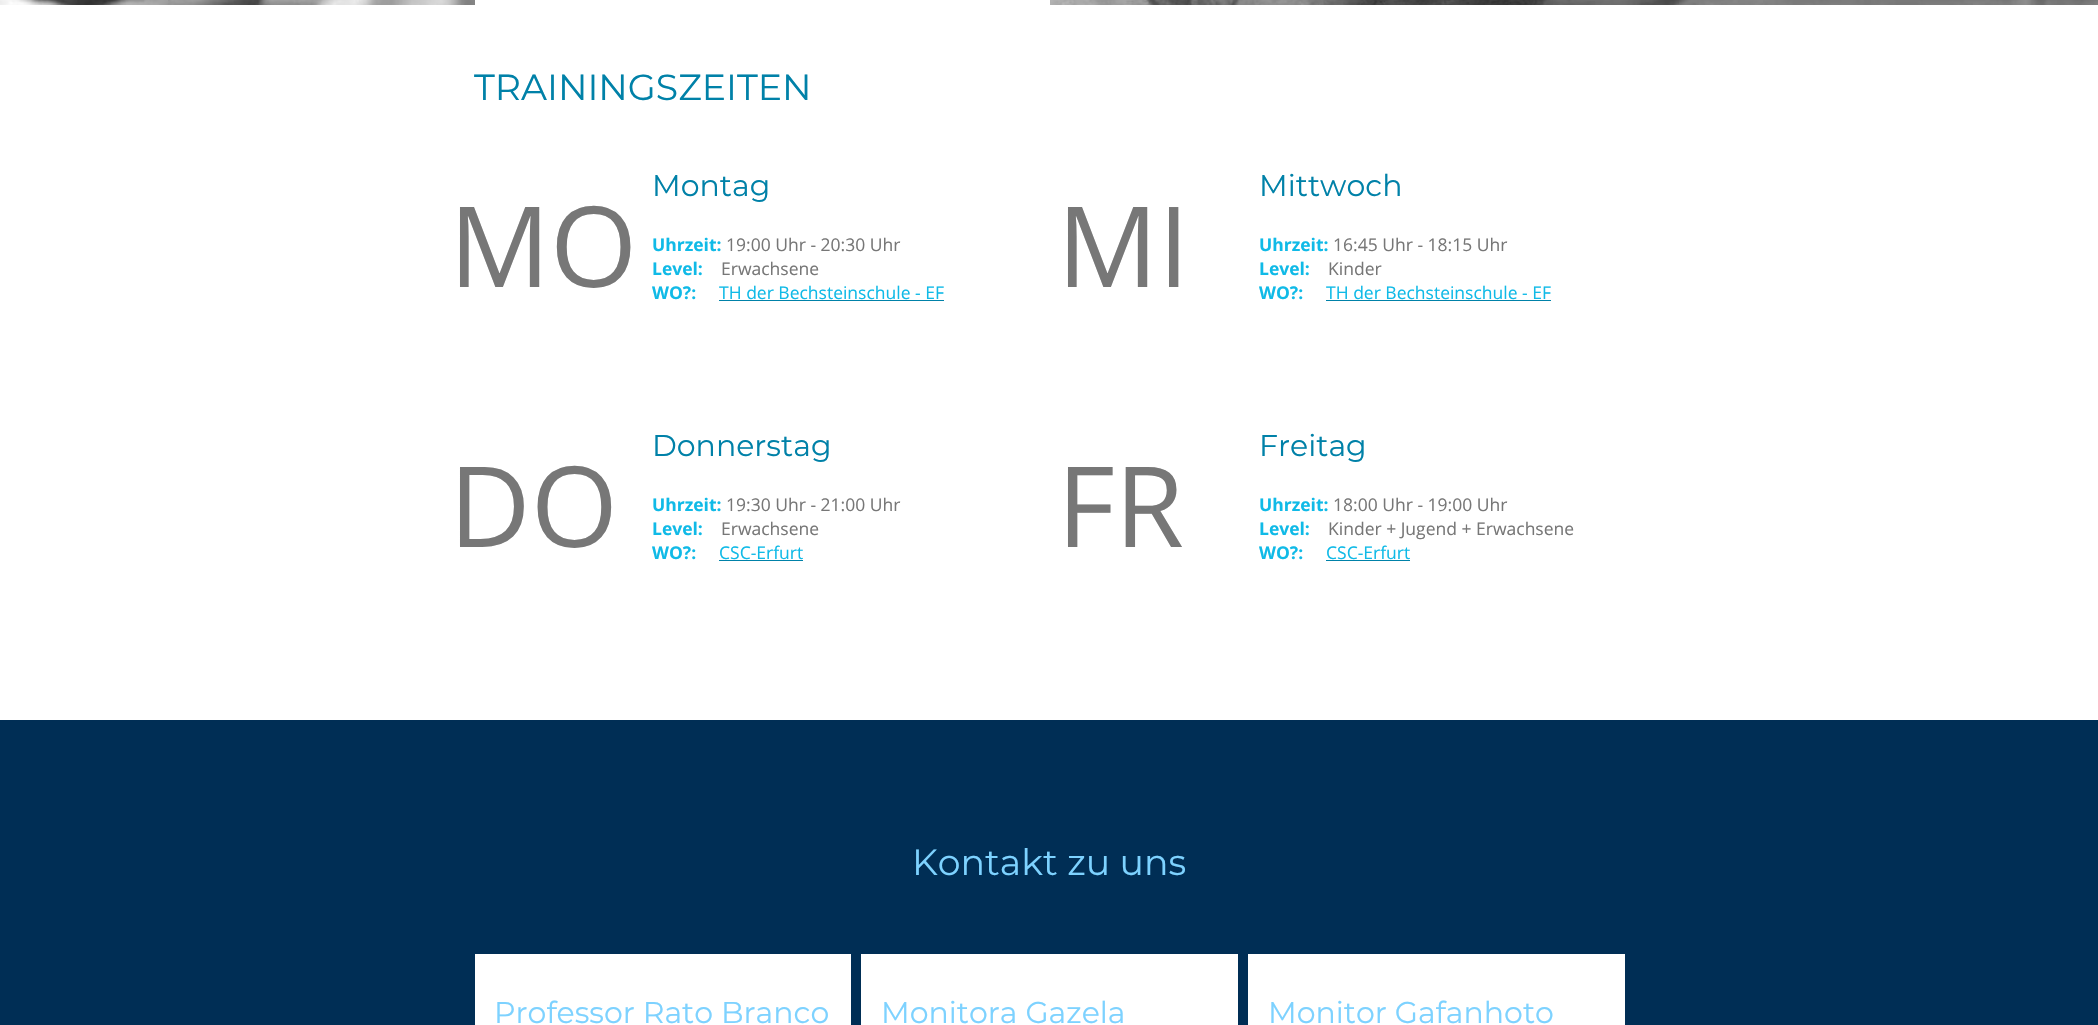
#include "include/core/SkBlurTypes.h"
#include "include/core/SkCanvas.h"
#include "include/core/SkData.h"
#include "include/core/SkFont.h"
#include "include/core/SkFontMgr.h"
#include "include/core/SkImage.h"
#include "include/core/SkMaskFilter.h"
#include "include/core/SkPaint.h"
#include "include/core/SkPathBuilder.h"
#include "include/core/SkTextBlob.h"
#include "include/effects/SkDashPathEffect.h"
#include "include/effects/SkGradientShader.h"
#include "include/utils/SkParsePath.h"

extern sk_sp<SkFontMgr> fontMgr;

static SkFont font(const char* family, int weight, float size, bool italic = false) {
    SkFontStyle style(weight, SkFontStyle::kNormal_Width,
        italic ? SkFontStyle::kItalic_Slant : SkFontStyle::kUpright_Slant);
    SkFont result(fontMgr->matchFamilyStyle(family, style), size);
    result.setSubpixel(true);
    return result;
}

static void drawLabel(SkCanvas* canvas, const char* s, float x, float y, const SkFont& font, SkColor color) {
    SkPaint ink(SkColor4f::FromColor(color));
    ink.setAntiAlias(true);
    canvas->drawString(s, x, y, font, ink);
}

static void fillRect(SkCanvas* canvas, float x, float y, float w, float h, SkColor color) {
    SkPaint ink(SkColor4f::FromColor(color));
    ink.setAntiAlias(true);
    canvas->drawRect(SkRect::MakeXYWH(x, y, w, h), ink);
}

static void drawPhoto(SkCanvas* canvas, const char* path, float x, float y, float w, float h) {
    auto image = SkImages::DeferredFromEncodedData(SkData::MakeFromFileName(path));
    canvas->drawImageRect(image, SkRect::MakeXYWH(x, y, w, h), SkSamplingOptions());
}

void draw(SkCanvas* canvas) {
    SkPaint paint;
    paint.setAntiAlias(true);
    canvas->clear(0xFFFFFFFF);
    drawPhoto(canvas, "assets/img1.png", 0, 0, 2098, 5);
    fillRect(canvas, 475, 0, 575, 5, 0xFFFFFFFF);
    SkFont font1 = font("Montserrat", 400, 36.25f);
    drawLabel(canvas, "TRAININGSZEITEN", 474, 100, font1, 0xFF0081A8);
    SkFont font2 = font("Montserrat", 400, 30);
    drawLabel(canvas, "Montag", 652, 196, font2, 0xFF0081A8);
    SkFont font3 = font("Open Sans", 400, 112);
    drawLabel(canvas, "MO", 449, 287, font3, 0xFF777777);
    SkFont font4 = font("Open Sans", 700, 17.5f);
    drawLabel(canvas, "Uhrzeit:", 652, 251, font4, 0xFF10BAE7);
    SkFont font5 = font("Open Sans", 400, 17.5f);
    drawLabel(canvas, "19:00 Uhr - 20:30 Uhr", 726, 251, font5, 0xFF777777);
    drawLabel(canvas, "Level:", 652, 275, font4, 0xFF10BAE7);
    drawLabel(canvas, "Erwachsene", 721, 275, font5, 0xFF777777);
    drawLabel(canvas, "WO?:", 652, 299, font4, 0xFF10BAE7);
    drawLabel(canvas, "TH der Bechsteinschule - EF", 719, 299, font5, 0xFF10BAE7);
    fillRect(canvas, 719, 300, 225, 1, 0xFF0081A8);
    drawLabel(canvas, "Mittwoch", 1259, 196, font2, 0xFF0081A8);
    drawLabel(canvas, "MI", 1057, 287, font3, 0xFF777777);
    drawLabel(canvas, "Uhrzeit:", 1259, 251, font4, 0xFF10BAE7);
    drawLabel(canvas, "16:45 Uhr - 18:15 Uhr", 1333, 251, font5, 0xFF777777);
    drawLabel(canvas, "Level:", 1259, 275, font4, 0xFF10BAE7);
    drawLabel(canvas, "Kinder", 1328, 275, font5, 0xFF777777);
    drawLabel(canvas, "WO?:", 1259, 299, font4, 0xFF10BAE7);
    drawLabel(canvas, "TH der Bechsteinschule - EF", 1326, 299, font5, 0xFF10BAE7);
    fillRect(canvas, 1326, 300, 225, 1, 0xFF0081A8);
    drawLabel(canvas, "Donnerstag", 652, 456, font2, 0xFF0081A8);
    drawLabel(canvas, "DO", 449, 547, font3, 0xFF777777);
    drawLabel(canvas, "Uhrzeit:", 652, 511, font4, 0xFF10BAE7);
    drawLabel(canvas, "19:30 Uhr - 21:00 Uhr", 726, 511, font5, 0xFF777777);
    drawLabel(canvas, "Level:", 652, 535, font4, 0xFF10BAE7);
    drawLabel(canvas, "Erwachsene", 721, 535, font5, 0xFF777777);
    drawLabel(canvas, "WO?:", 652, 559, font4, 0xFF10BAE7);
    drawLabel(canvas, "CSC-Erfurt", 719, 559, font5, 0xFF10BAE7);
    fillRect(canvas, 719, 560, 84, 1, 0xFF0081A8);
    drawLabel(canvas, "Freitag", 1259, 456, font2, 0xFF0081A8);
    drawLabel(canvas, "FR", 1057, 547, font3, 0xFF777777);
    drawLabel(canvas, "Uhrzeit:", 1259, 511, font4, 0xFF10BAE7);
    drawLabel(canvas, "18:00 Uhr - 19:00 Uhr", 1333, 511, font5, 0xFF777777);
    drawLabel(canvas, "Level:", 1259, 535, font4, 0xFF10BAE7);
    drawLabel(canvas, "Kinder + Jugend + Erwachsene", 1328, 535, font5, 0xFF777777);
    drawLabel(canvas, "WO?:", 1259, 559, font4, 0xFF10BAE7);
    drawLabel(canvas, "CSC-Erfurt", 1326, 559, font5, 0xFF10BAE7);
    fillRect(canvas, 1326, 560, 84, 1, 0xFF0081A8);
    fillRect(canvas, 0, 720, 2098, 305, 0xFF002E55);
    drawLabel(canvas, "Kontakt zu uns", 912, 875, font1, 0xFF7DD2FF);
    fillRect(canvas, 475, 954, 376, 71, 0xFFFFFFFF);
    drawLabel(canvas, "Professor Rato Branco", 494, 1023, font2, 0xFF7DD2FF);
    fillRect(canvas, 861, 954, 377, 71, 0xFFFFFFFF);
    drawLabel(canvas, "Monitora Gazela", 881, 1023, font2, 0xFF7DD2FF);
    fillRect(canvas, 1248, 954, 377, 71, 0xFFFFFFFF);
    drawLabel(canvas, "Monitor Gafanhoto", 1268, 1023, font2, 0xFF7DD2FF);
}
